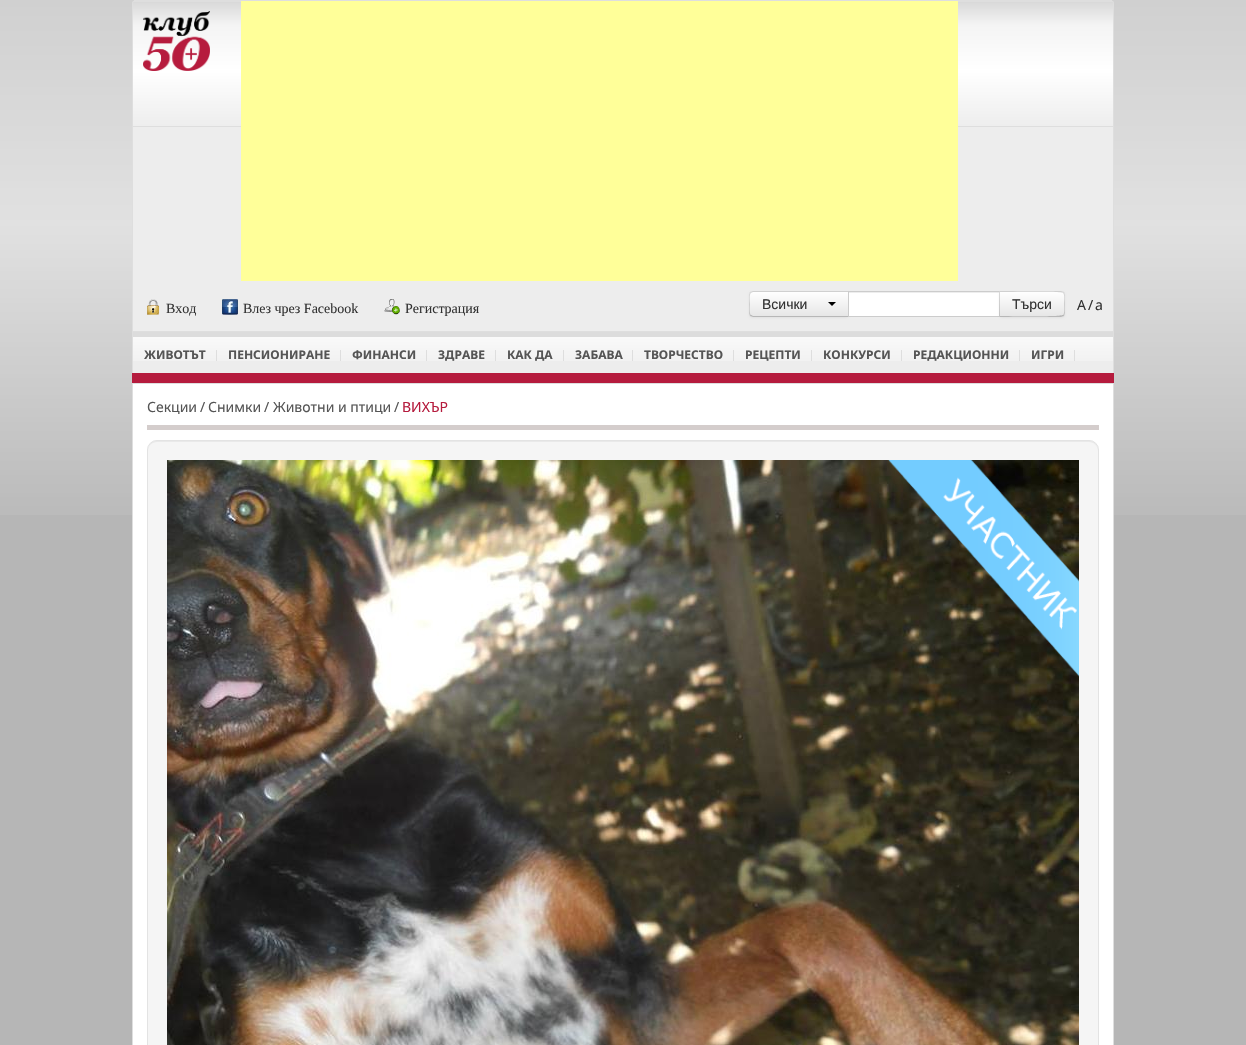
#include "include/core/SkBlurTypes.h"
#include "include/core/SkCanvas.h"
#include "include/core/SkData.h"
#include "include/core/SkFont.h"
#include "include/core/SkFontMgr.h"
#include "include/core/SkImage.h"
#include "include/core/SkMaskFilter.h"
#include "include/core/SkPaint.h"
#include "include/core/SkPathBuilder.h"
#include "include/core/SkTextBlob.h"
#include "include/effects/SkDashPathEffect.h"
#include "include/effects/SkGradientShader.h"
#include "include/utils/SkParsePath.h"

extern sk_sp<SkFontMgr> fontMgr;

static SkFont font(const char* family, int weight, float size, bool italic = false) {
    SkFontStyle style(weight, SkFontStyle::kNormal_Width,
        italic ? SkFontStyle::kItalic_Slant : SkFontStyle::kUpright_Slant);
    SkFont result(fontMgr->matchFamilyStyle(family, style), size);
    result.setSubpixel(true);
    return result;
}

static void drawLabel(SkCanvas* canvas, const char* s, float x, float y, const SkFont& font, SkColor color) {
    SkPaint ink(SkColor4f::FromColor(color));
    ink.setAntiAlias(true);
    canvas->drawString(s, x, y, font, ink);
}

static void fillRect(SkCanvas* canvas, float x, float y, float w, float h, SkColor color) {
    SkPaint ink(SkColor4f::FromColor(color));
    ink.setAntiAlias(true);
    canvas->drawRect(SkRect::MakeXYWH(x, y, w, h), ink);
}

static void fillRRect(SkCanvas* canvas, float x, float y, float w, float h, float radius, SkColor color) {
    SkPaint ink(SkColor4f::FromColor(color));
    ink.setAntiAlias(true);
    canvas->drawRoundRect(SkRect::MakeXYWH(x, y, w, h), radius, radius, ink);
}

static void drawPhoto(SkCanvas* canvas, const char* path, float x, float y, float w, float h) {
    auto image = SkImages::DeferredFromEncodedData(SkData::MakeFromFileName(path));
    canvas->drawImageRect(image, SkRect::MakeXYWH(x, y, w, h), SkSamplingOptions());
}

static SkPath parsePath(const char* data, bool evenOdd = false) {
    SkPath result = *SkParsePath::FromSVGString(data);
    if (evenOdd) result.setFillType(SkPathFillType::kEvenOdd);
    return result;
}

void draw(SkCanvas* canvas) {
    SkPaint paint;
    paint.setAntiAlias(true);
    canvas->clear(0xFFB6B6B6);
    drawPhoto(canvas, "assets/img1.png", 0, 0, 1246, 515);
    fillRRect(canvas, 132, 0, 982, 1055, 10, 0xFFFFFFFF);
    paint.setColor(0xFFEDEDED);
    canvas->drawPath(parsePath("M136 0H1110C1112 0 1114 2 1114 4V331H132V4C132 2 134 0 136 0Z"), paint);
    drawPhoto(canvas, "assets/img2.png", 132, 1, 982, 126);
    paint.setColor(0xFFDEDEDE);
    canvas->drawPath(parsePath("M136 0H1110C1112 0 1114 2 1114 4V331H132V4C132 2 134 0 136 0ZM136 1H1110C1112 1 1113 2 1113 4V331H133V4C133 2 134 1 136 1Z", true), paint);
    drawPhoto(canvas, "assets/img3.png", 143, 11, 67, 60);
    fillRect(canvas, 241, 1, 717, 280, 0xFFFFFF99);
    drawPhoto(canvas, "assets/img4.png", 147, 299, 13, 16);
    SkFont font1 = font("Liberation Serif", 400, 14);
    drawLabel(canvas, "Вход", 166, 313, font1, 0xFF333333);
    drawPhoto(canvas, "assets/img5.png", 222, 299, 16, 16);
    drawLabel(canvas, "Влез чрез Facebook", 243, 313, font1, 0xFF333333);
    drawPhoto(canvas, "assets/img6.png", 384, 299, 16, 16);
    drawLabel(canvas, "Регистрация", 405, 313, font1, 0xFF333333);
    paint.setColor(0x0D000000);
    paint.setMaskFilter(SkMaskFilter::MakeBlur(kNormal_SkBlurStyle, 1));
    canvas->drawRoundRect(SkRect::MakeXYWH(749, 292, 100, 26), 4, 4, paint);
    paint.setMaskFilter(nullptr);
    paint.setColor(0xFFF5F5F5);
    canvas->drawPath(parsePath("M753 291H849V317H753C751 317 749 315 749 313V295C749 293 751 291 753 291Z"), paint);
    canvas->save();
    canvas->clipPath(parsePath("M753 291H849V317H753C751 317 749 315 749 313V295C749 293 751 291 753 291Z"), true);
    {
        const SkColor colors[] = {0xFFFFFFFF, 0xFFE6E6E6};
        const float stops[] = {0, 1};
        const SkPoint ends[] = {{799, 292}, {799, 316}};
        paint.setShader(SkGradientShader::MakeLinear(ends, colors, stops, 2, SkTileMode::kClamp));
        paint.setAlpha(255);
    }
    canvas->drawRect(SkRect::MakeXYWH(749, 292, 99, 24), paint);
    canvas->restore();
    paint.setShader(nullptr);
    paint.setColor(0x26000000);
    canvas->drawPath(parsePath("M753 291L750 292L751 293L753 292H848L849 291Z"), paint);
    paint.setColor(0x40000000);
    canvas->drawPath(parsePath("M849 317L848 316H753L751 315L750 316L753 317Z"), paint);
    paint.setColor(0x26000000);
    canvas->drawPath(parsePath("M749 295V313C749 314 749.5 315 750 316L751 315C749 313.5 750 306 750 304C750 302 749 294.5 751 293L750 292C749.5 293 749 294 749 295Z"), paint);
    SkFont font2 = font("Liberation Sans", 400, 14);
    drawLabel(canvas, "Всички", 762, 309, font2, 0xFF333333);
    paint.setColor(0xFF000000);
    canvas->drawPath(parsePath("M828 302H836L832 306Z"), paint);
    fillRect(canvas, 849, 293, 150, 23, 0xFFFFFFFF);
    paint.setStroke(true);
    paint.setStrokeWidth(1);
    paint.setColor(0xFFCCCCCC);
    canvas->drawRect(SkRect::MakeXYWH(848.5f, 291.5f, 151, 25), paint);
    paint.setStroke(false);
    paint.setColor(0x0D000000);
    paint.setMaskFilter(SkMaskFilter::MakeBlur(kNormal_SkBlurStyle, 1));
    canvas->drawRoundRect(SkRect::MakeXYWH(999, 292, 66, 26), 4, 4, paint);
    paint.setMaskFilter(nullptr);
    paint.setColor(0xFFF5F5F5);
    canvas->drawPath(parsePath("M999 291H1061C1063 291 1065 293 1065 295V313C1065 315 1063 317 1061 317H999Z"), paint);
    canvas->save();
    canvas->clipPath(parsePath("M999 291H1061C1063 291 1065 293 1065 295V313C1065 315 1063 317 1061 317H999Z"), true);
    {
        const SkColor colors[] = {0xFFFFFFFF, 0xFFE6E6E6};
        const float stops[] = {0, 1};
        const SkPoint ends[] = {{1032, 292}, {1032, 316}};
        paint.setShader(SkGradientShader::MakeLinear(ends, colors, stops, 2, SkTileMode::kClamp));
        paint.setAlpha(255);
    }
    canvas->drawRect(SkRect::MakeXYWH(999, 292, 66, 24), paint);
    canvas->restore();
    paint.setShader(nullptr);
    paint.setColor(0x26000000);
    canvas->drawPath(parsePath("M999 291L1000 292C1007 292 1062 291 1063 293L1064 292L1061 291Z"), paint);
    canvas->drawPath(parsePath("M1065 313V295C1065 294 1064.5 293 1064 292L1063 293C1065 294.5 1064 302 1064 304C1064 306 1065 313.5 1063 315L1064 316C1064.5 315 1065 314 1065 313Z"), paint);
    paint.setColor(0x40000000);
    canvas->drawPath(parsePath("M1061 317L1064 316L1063 315C1062 317 1007 316 1000 316L999 317Z"), paint);
    paint.setColor(0x26000000);
    canvas->drawPath(parsePath("M999 291V317L1000 316V292Z"), paint);
    drawLabel(canvas, "Търси", 1012, 309, font2, 0xFF333333);
    SkFont font3 = font("Noto Sans", 400, 14);
    drawLabel(canvas, "A", 1077, 310, font3, 0xFF333333);
    drawLabel(canvas, "/", 1088, 310, font3, 0xFF333333);
    drawLabel(canvas, "a", 1095, 310, font3, 0xFF333333);
    fillRect(canvas, 133, 361, 980, 12, 0xFFEDEDED);
    drawPhoto(canvas, "assets/img7.png", 133, 332, 980, 29);
    fillRect(canvas, 132, 331, 982, 1, 0xFFDEDEDE);
    fillRect(canvas, 1113, 331, 1, 42, 0xFFDEDEDE);
    fillRect(canvas, 132, 331, 1, 42, 0xFFDEDEDE);
    fillRect(canvas, 216, 350, 1, 11, 0xFFDEDEDE);
    SkFont font4 = font("Noto Sans", 700, 12);
    drawLabel(canvas, "ЖИВОТЪТ", 144, 359, font4, 0xFF555555);
    fillRect(canvas, 340, 350, 1, 11, 0xFFDEDEDE);
    drawLabel(canvas, "ПЕНСИОНИРАНЕ", 228, 359, font4, 0xFF555555);
    fillRect(canvas, 426, 350, 1, 11, 0xFFDEDEDE);
    drawLabel(canvas, "ФИНАНСИ", 352, 359, font4, 0xFF555555);
    fillRect(canvas, 495, 350, 1, 11, 0xFFDEDEDE);
    drawLabel(canvas, "ЗДРАВЕ", 438, 359, font4, 0xFF555555);
    fillRect(canvas, 563, 350, 1, 11, 0xFFDEDEDE);
    drawLabel(canvas, "КАК ДА", 507, 359, font4, 0xFF555555);
    fillRect(canvas, 632, 350, 1, 11, 0xFFDEDEDE);
    drawLabel(canvas, "ЗАБАВА", 575, 359, font4, 0xFF555555);
    fillRect(canvas, 733, 350, 1, 11, 0xFFDEDEDE);
    drawLabel(canvas, "ТВОРЧЕСТВО", 644, 359, font4, 0xFF555555);
    fillRect(canvas, 811, 350, 1, 11, 0xFFDEDEDE);
    drawLabel(canvas, "РЕЦЕПТИ", 745, 359, font4, 0xFF555555);
    fillRect(canvas, 901, 350, 1, 11, 0xFFDEDEDE);
    drawLabel(canvas, "КОНКУРСИ", 823, 359, font4, 0xFF555555);
    fillRect(canvas, 1019, 350, 1, 11, 0xFFDEDEDE);
    drawLabel(canvas, "РЕДАКЦИОННИ", 913, 359, font4, 0xFF555555);
    fillRect(canvas, 1074, 350, 1, 11, 0xFFDEDEDE);
    drawLabel(canvas, "ИГРИ", 1031, 359, font4, 0xFF555555);
    fillRect(canvas, 132, 373, 982, 10, 0xFFB51B3D);
    fillRect(canvas, 132, 383, 982, 1, 0xFFDEDEDE);
    fillRect(canvas, 1113, 383, 1, 662, 0xFFDEDEDE);
    fillRect(canvas, 132, 383, 1, 662, 0xFFDEDEDE);
    fillRect(canvas, 147, 425, 952, 5, 0xFFD4CDCC);
    drawLabel(canvas, "Секции", 147, 412, font3, 0xFF555555);
    drawLabel(canvas, "/", 200, 412, font3, 0xFF555555);
    drawLabel(canvas, "Снимки", 208, 412, font3, 0xFF555555);
    drawLabel(canvas, "/", 264, 412, font3, 0xFF555555);
    drawLabel(canvas, "Животни и птици", 273, 412, font3, 0xFF555555);
    drawLabel(canvas, "/", 394, 412, font3, 0xFF555555);
    drawLabel(canvas, "ВИХЪР", 402, 412, font3, 0xFFB51B3D);
    fillRRect(canvas, 147, 440, 952, 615, 10, 0xFFF5F5F5);
    paint.setColor(0xFFE9E9E9);
    canvas->drawPath(parsePath("M157 442H1089C1094 442 1098 446 1098 451C1098 446 1095 441 1089 441H157C151 441 148 446 148 451C148 446 152 442 157 442Z"), paint);
    paint.setStroke(true);
    paint.setColor(0xFFE3E3E3);
    canvas->drawRoundRect(SkRect::MakeXYWH(147.5f, 440.5f, 951, 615), 9.5f, 9.5f, paint);
    drawPhoto(canvas, "assets/img8.png", 167, 460, 912, 585);
    drawPhoto(canvas, "assets/img9.png", 888, 460, 191, 217);
}
